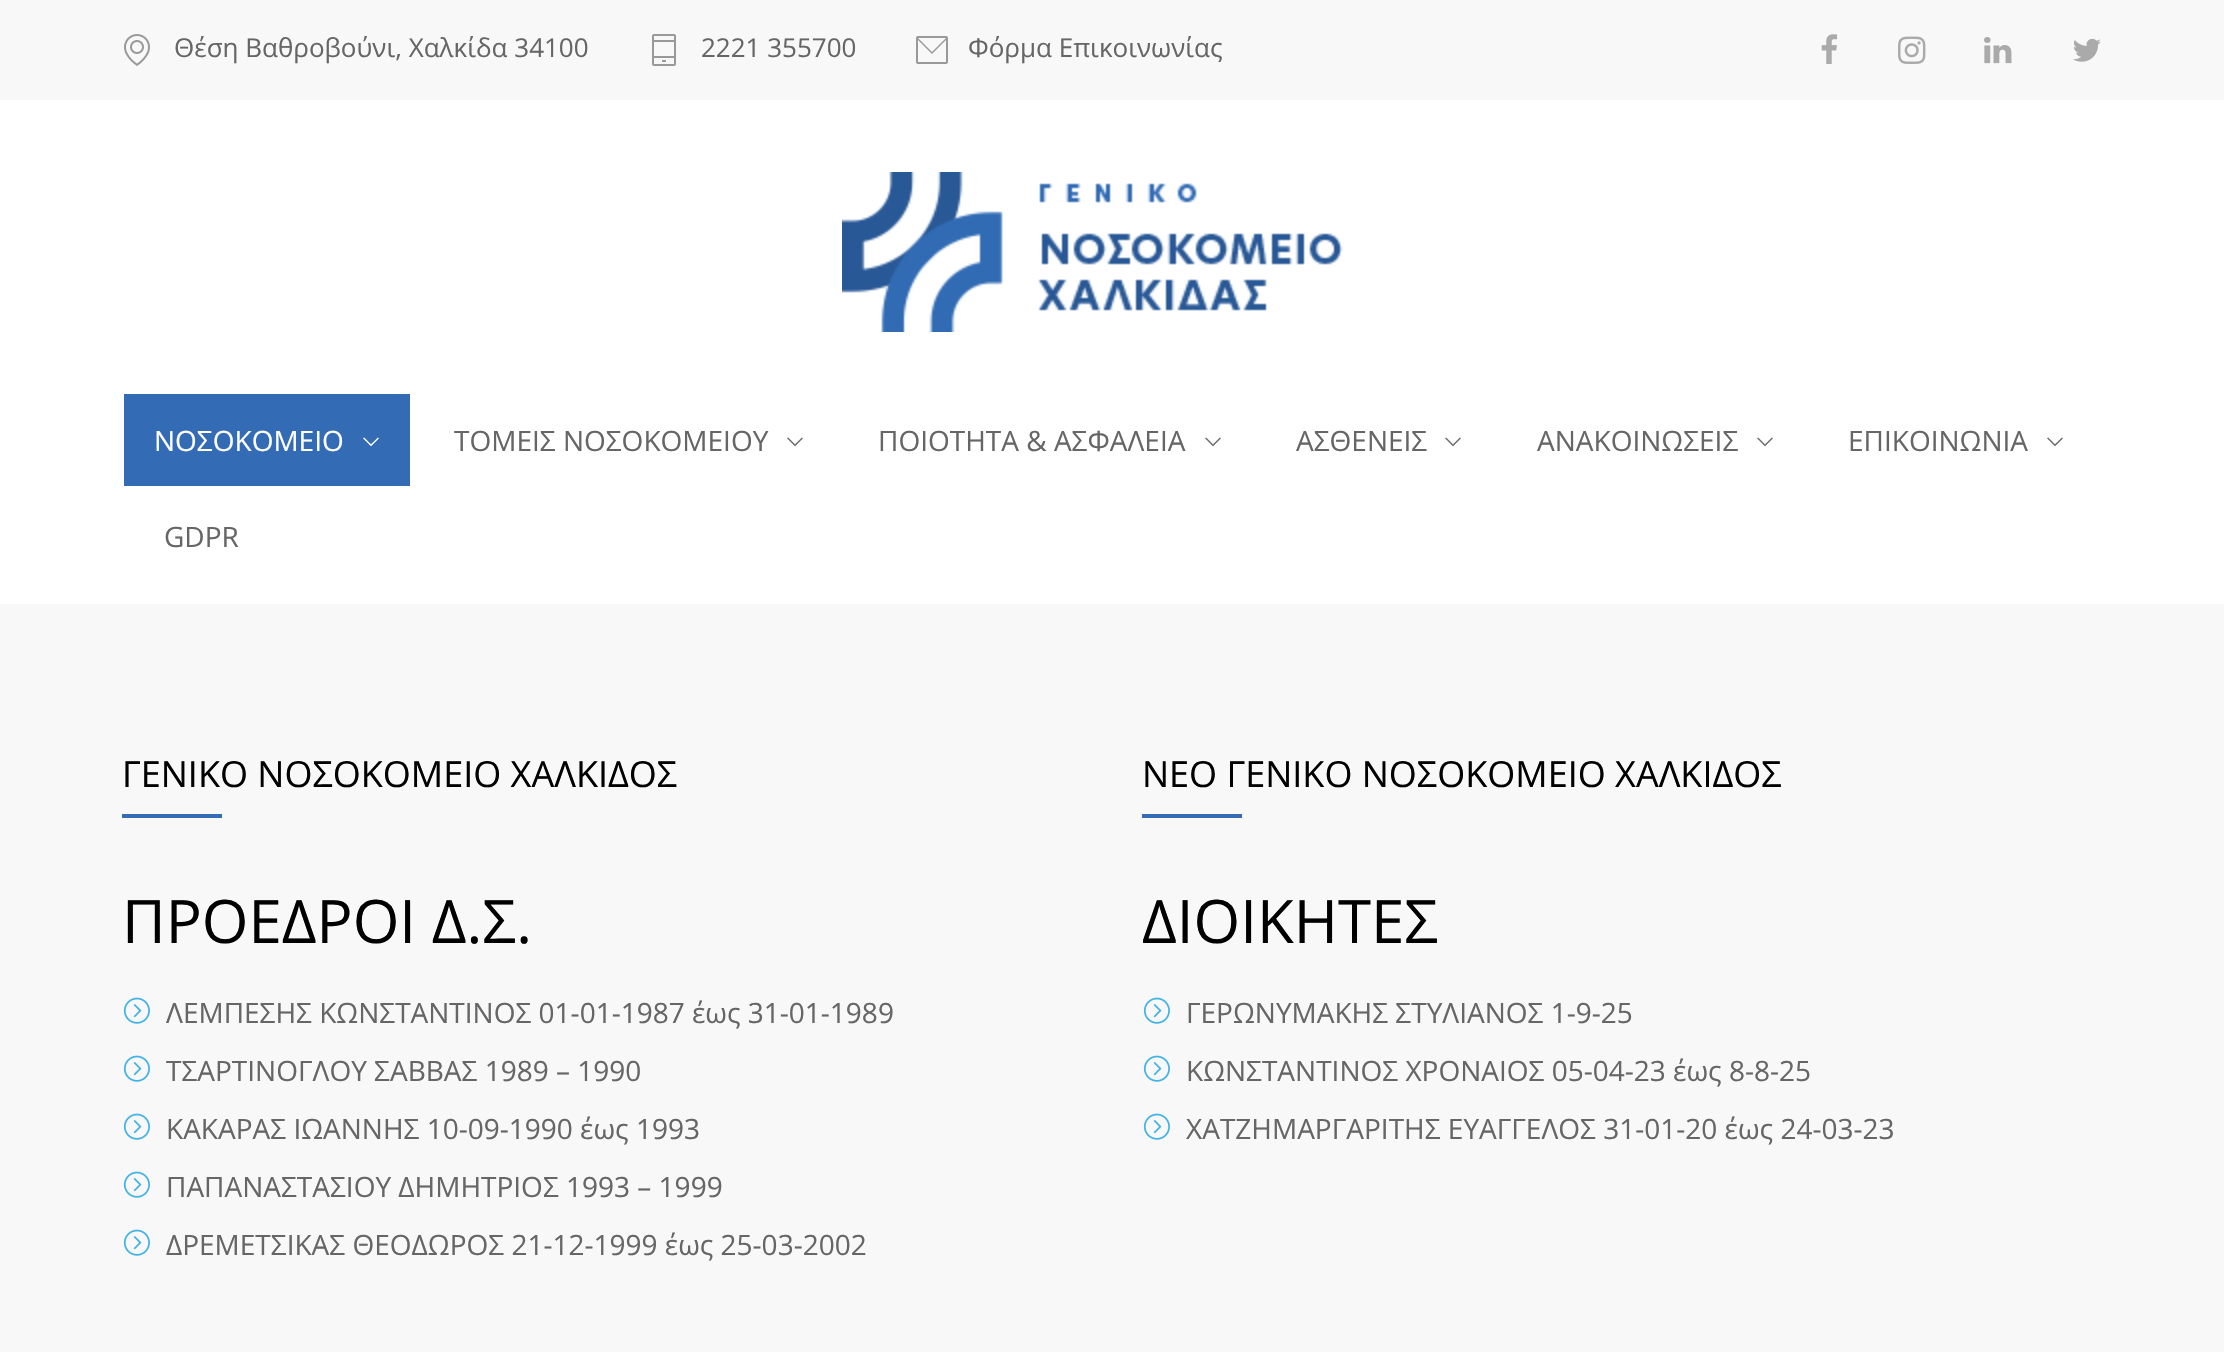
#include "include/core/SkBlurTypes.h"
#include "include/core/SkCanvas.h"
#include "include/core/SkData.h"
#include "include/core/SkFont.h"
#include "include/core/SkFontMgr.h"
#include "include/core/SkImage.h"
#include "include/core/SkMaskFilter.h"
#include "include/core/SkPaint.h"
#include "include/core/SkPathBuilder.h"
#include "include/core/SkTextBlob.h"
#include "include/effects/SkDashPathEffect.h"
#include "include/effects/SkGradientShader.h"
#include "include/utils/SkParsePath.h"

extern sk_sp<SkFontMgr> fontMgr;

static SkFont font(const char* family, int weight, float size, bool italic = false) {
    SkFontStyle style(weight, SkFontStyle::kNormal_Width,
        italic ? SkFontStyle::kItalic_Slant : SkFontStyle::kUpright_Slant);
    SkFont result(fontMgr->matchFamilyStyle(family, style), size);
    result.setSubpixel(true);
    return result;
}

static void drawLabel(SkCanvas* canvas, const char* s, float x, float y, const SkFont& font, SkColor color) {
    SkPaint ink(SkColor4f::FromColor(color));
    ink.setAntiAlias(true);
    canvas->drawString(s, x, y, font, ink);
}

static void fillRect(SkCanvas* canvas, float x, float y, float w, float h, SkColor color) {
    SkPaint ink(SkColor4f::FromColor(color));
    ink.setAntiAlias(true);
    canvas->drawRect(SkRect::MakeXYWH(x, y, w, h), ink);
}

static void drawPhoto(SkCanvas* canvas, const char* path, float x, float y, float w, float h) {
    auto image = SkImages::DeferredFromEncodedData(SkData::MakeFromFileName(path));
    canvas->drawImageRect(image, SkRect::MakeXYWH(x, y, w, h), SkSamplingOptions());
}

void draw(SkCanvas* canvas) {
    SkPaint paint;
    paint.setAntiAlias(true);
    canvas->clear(0xFFF8F8F8);
    drawPhoto(canvas, "assets/img1.png", 124, 34, 26, 32);
    SkFont font1 = font("Open Sans", 400, 26);
    drawLabel(canvas, "Θέση Βαθροβούνι, Χαλκίδα 34100", 174, 57, font1, 0xFF666666);
    drawPhoto(canvas, "assets/img2.png", 652, 34, 24, 32);
    drawLabel(canvas, "2221 355700", 701, 57, font1, 0xFF666666);
    drawPhoto(canvas, "assets/img3.png", 916, 36, 32, 28);
    drawLabel(canvas, "Φόρμα Επικοινωνίας", 968, 57, font1, 0xFF666666);
    drawPhoto(canvas, "assets/img4.png", 1821, 34, 17, 30);
    drawPhoto(canvas, "assets/img5.png", 1898, 36, 28, 28);
    drawPhoto(canvas, "assets/img6.png", 1984, 37, 28, 27);
    drawPhoto(canvas, "assets/img7.png", 2073, 38, 28, 24);
    fillRect(canvas, 0, 100, 2224, 504, 0xFFFFFFFF);
    drawPhoto(canvas, "assets/img8.png", 842, 172, 501, 160);
    fillRect(canvas, 124, 394, 286, 92, 0xFF336BB4);
    SkFont font2 = font("Open Sans", 400, 28);
    drawLabel(canvas, "ΝΟΣΟΚΟΜΕΙΟ", 154, 451, font2, 0xFFFFFFFF);
    drawPhoto(canvas, "assets/img9.png", 363, 437, 16, 10);
    drawLabel(canvas, "ΤΟΜΕΙΣ ΝΟΣΟΚΟΜΕΙΟΥ", 454, 451, font2, 0xFF666666);
    drawPhoto(canvas, "assets/img10.png", 787, 437, 16, 10);
    drawLabel(canvas, "ΠΟΙΟΤΗΤΑ & ΑΣΦΑΛΕΙΑ", 878, 451, font2, 0xFF666666);
    drawPhoto(canvas, "assets/img10.png", 1205, 437, 16, 10);
    drawLabel(canvas, "ΑΣΘΕΝΕΙΣ", 1296, 451, font2, 0xFF666666);
    drawPhoto(canvas, "assets/img10.png", 1445, 437, 16, 10);
    drawLabel(canvas, "ΑΝΑΚΟΙΝΩΣΕΙΣ", 1537, 451, font2, 0xFF666666);
    drawPhoto(canvas, "assets/img10.png", 1757, 437, 16, 10);
    drawLabel(canvas, "ΕΠΙΚΟΙΝΩΝΙΑ", 1848, 451, font2, 0xFF666666);
    drawPhoto(canvas, "assets/img10.png", 2047, 437, 16, 10);
    drawLabel(canvas, "GDPR", 164, 547, font2, 0xFF666666);
    SkFont font3 = font("Open Sans", 400, 36);
    drawLabel(canvas, "ΓΕΝΙΚΟ ΝΟΣΟΚΟΜΕΙΟ ΧΑΛΚΙΔΟΣ", 122, 787, font3, 0xFF000000);
    fillRect(canvas, 122, 814, 100, 4, 0xFF336BB4);
    SkFont font4 = font("Open Sans", 400, 60);
    drawLabel(canvas, "ΠΡΟΕΔΡΟΙ Δ.Σ.", 122, 943, font4, 0xFF000000);
    drawPhoto(canvas, "assets/img11.png", 123, 997, 27, 27);
    drawLabel(canvas, "ΛΕΜΠΕΣΗΣ ΚΩΝΣΤΑΝΤΙΝΟΣ 01-01-1987 έως 31-01-1989", 166, 1023, font2, 0xFF666666);
    drawPhoto(canvas, "assets/img11.png", 123, 1055, 27, 27);
    drawLabel(canvas, "ΤΣΑΡΤΙΝΟΓΛΟΥ ΣΑΒΒΑΣ 1989 – 1990", 166, 1081, font2, 0xFF666666);
    drawPhoto(canvas, "assets/img11.png", 123, 1113, 27, 27);
    drawLabel(canvas, "ΚΑΚΑΡΑΣ ΙΩΑΝΝΗΣ 10-09-1990 έως 1993", 166, 1139, font2, 0xFF666666);
    drawPhoto(canvas, "assets/img11.png", 123, 1171, 27, 27);
    drawLabel(canvas, "ΠΑΠΑΝΑΣΤΑΣΙΟΥ ΔΗΜΗΤΡΙΟΣ 1993 – 1999", 166, 1197, font2, 0xFF666666);
    drawPhoto(canvas, "assets/img11.png", 123, 1229, 27, 27);
    drawLabel(canvas, "ΔΡΕΜΕΤΣΙΚΑΣ ΘΕΟΔΩΡΟΣ 21-12-1999 έως 25-03-2002", 166, 1255, font2, 0xFF666666);
    drawLabel(canvas, "ΝΕΟ ΓΕΝΙΚΟ ΝΟΣΟΚΟΜΕΙΟ ΧΑΛΚΙΔΟΣ", 1142, 787, font3, 0xFF000000);
    fillRect(canvas, 1142, 814, 100, 4, 0xFF336BB4);
    drawLabel(canvas, "ΔΙΟΙΚΗΤΕΣ", 1142, 943, font4, 0xFF000000);
    drawPhoto(canvas, "assets/img11.png", 1143, 997, 27, 27);
    drawLabel(canvas, "ΓΕΡΩΝΥΜΑΚΗΣ ΣΤΥΛΙΑΝΟΣ 1-9-25", 1186, 1023, font2, 0xFF666666);
    drawPhoto(canvas, "assets/img11.png", 1143, 1055, 27, 27);
    drawLabel(canvas, "ΚΩΝΣΤΑΝΤΙΝΟΣ ΧΡΟΝΑΙΟΣ 05-04-23 έως 8-8-25", 1186, 1081, font2, 0xFF666666);
    drawPhoto(canvas, "assets/img11.png", 1143, 1113, 27, 27);
    drawLabel(canvas, "ΧΑΤΖΗΜΑΡΓΑΡΙΤΗΣ ΕΥΑΓΓΕΛΟΣ 31-01-20 έως 24-03-23", 1186, 1139, font2, 0xFF666666);
}
